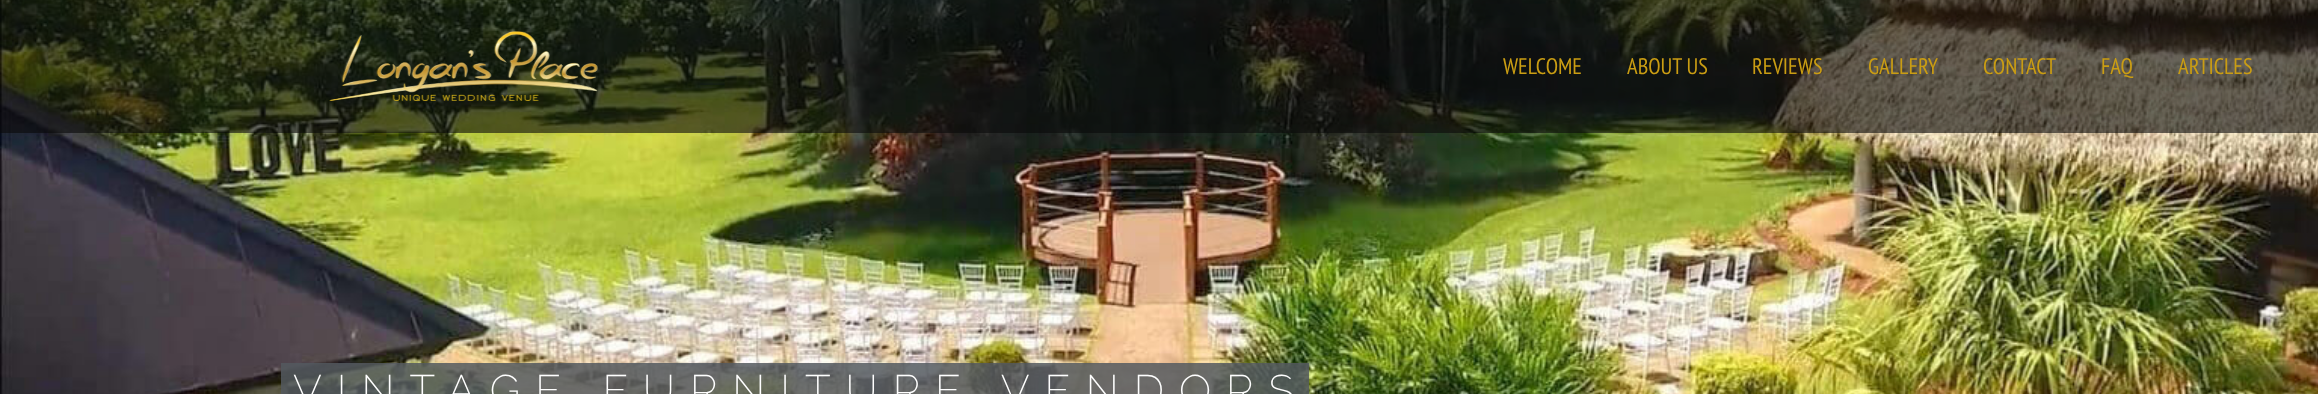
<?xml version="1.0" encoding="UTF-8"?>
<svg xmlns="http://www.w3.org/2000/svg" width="2318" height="394">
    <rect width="100%" height="100%" fill="#FFFFFF"/>
    <image x="0" y="0" width="2318" height="394" href="img_02.png"/>
    <rect x="0" y="0" width="2318" height="133" fill="#0A0A0A" fill-opacity="0.61"/>
    <image x="329" y="31" width="269" height="70" href="img_01.png"/>
    <text x="1503" y="74" font-family="PT Sans Narrow" font-size="22.5" fill="#CA9D13">WELCOME</text>
    <text x="1627" y="74" font-family="PT Sans Narrow" font-size="22.5" fill="#CA9D13">ABOUT US</text>
    <text x="1752" y="74" font-family="PT Sans Narrow" font-size="22.5" fill="#CA9D13">REVIEWS</text>
    <text x="1868" y="74" font-family="PT Sans Narrow" font-size="22.5" fill="#CA9D13">GALLERY</text>
    <text x="1983" y="74" font-family="PT Sans Narrow" font-size="22.5" fill="#CA9D13">CONTACT</text>
    <text x="2101" y="74" font-family="PT Sans Narrow" font-size="22.5" fill="#CA9D13">FAQ</text>
    <text x="2178" y="74" font-family="PT Sans Narrow" font-size="22.5" fill="#CA9D13">ARTICLES</text>
    <rect x="281" y="363" width="1028" height="31" fill="#54595F" fill-opacity="0.85"/>
    <text x="293" y="405" font-family="Raleway" font-size="42.5" font-weight="200" letter-spacing="15" fill="#FFFFFF">VINTAGE FURNITURE VENDORS</text>
</svg>
